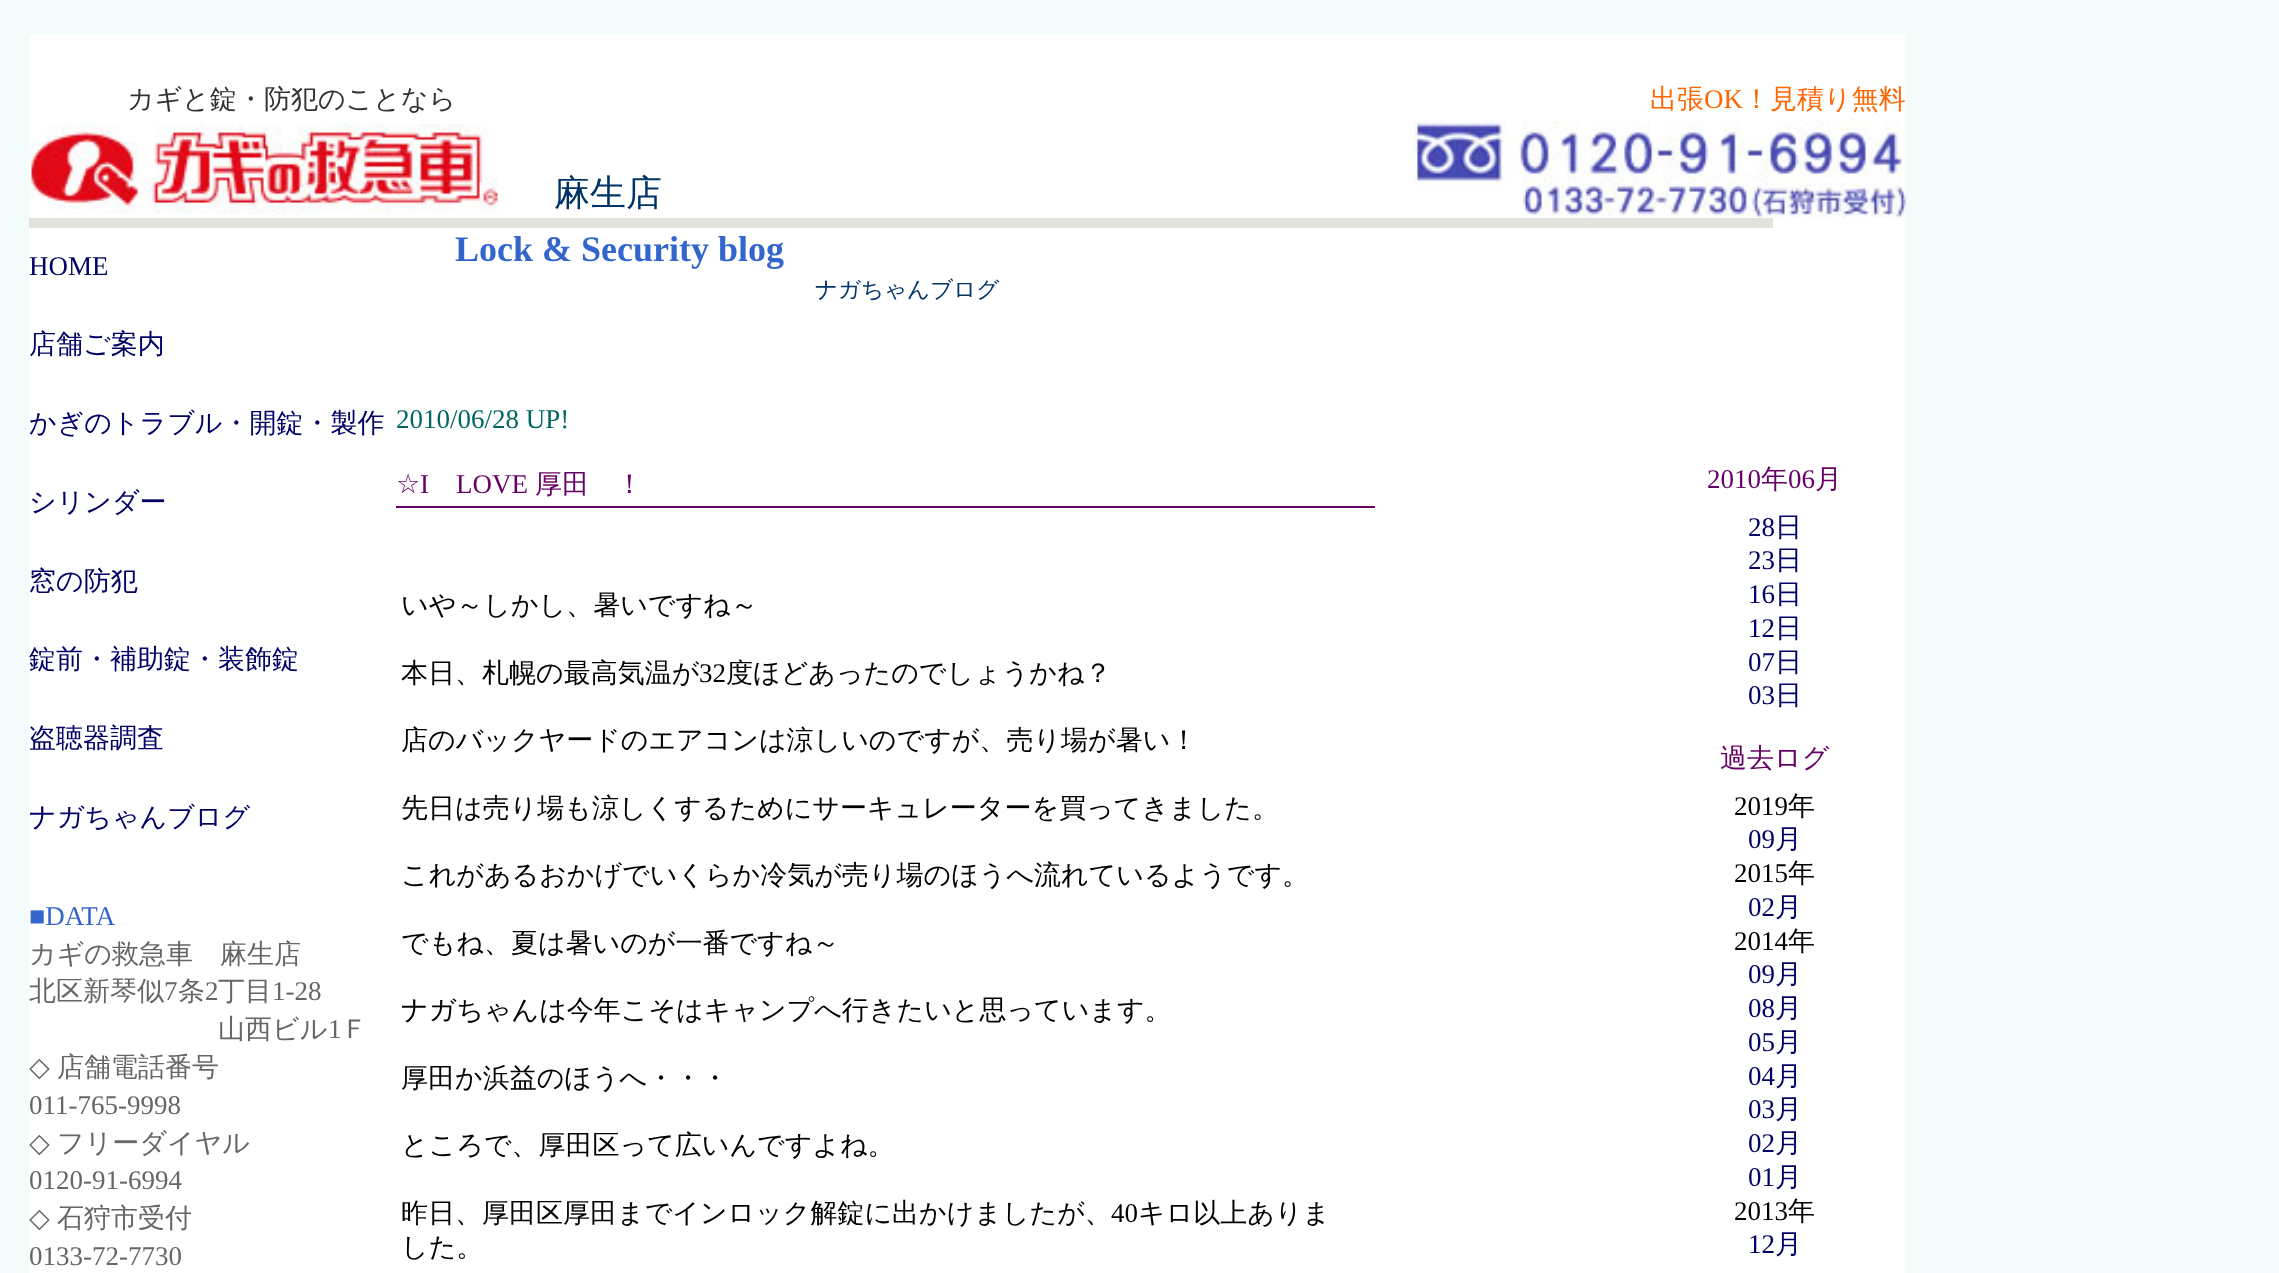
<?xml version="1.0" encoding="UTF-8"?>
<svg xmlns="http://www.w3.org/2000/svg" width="2279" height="1273">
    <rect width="100%" height="100%" fill="#F4FBFB"/>
    <rect x="29" y="34" width="1877" height="1239" fill="#FFFFFF"/>
    <text x="127" y="108" font-family="WenQuanYi Zen Hei" font-size="27" font-weight="500" fill="#333333">カギと錠・防犯のことなら</text>
    <text x="1650" y="108" font-family="WenQuanYi Zen Hei" font-size="27" font-weight="500" fill="#FF6600">出張</text>
    <text x="1704" y="108" font-family="Liberation Serif" font-size="27" fill="#FF6600">OK</text>
    <text x="1743" y="108" font-family="WenQuanYi Zen Hei" font-size="27" font-weight="500" fill="#FF6600">！見積り無料</text>
    <image x="29" y="123" width="469" height="91" href="img_01.png"/>
    <text x="554" y="205" font-family="WenQuanYi Zen Hei" font-size="36" font-weight="500" fill="#003366">麻生店</text>
    <image x="1415" y="119" width="491" height="100" href="img_02.png"/>
    <rect x="29" y="218" width="1744" height="10" fill="#E3E2DD"/>
    <text x="29" y="275" font-family="Liberation Serif" font-size="27" fill="#000066">HOME</text>
    <text x="29" y="353" font-family="WenQuanYi Zen Hei" font-size="27" font-weight="500" fill="#000066">店舗ご案内</text>
    <text x="29" y="432" font-family="WenQuanYi Zen Hei" font-size="27" font-weight="500" fill="#000066">かぎのトラブル・開錠・製作</text>
    <text x="29" y="511" font-family="WenQuanYi Zen Hei" font-size="27" font-weight="500" fill="#000066">シリンダー</text>
    <text x="29" y="590" font-family="WenQuanYi Zen Hei" font-size="27" font-weight="500" fill="#000066">窓の防犯</text>
    <text x="29" y="668" font-family="WenQuanYi Zen Hei" font-size="27" font-weight="500" fill="#000066">錠前・補助錠・装飾錠</text>
    <text x="29" y="747" font-family="WenQuanYi Zen Hei" font-size="27" font-weight="500" fill="#000066">盗聴器調査</text>
    <text x="29" y="826" font-family="WenQuanYi Zen Hei" font-size="27" font-weight="500" fill="#000066">ナガちゃんブログ</text>
    <text x="29" y="925" font-family="Liberation Serif" font-size="27" fill="#3366CC">■DATA</text>
    <text font-family="WenQuanYi Zen Hei" font-size="27" font-weight="500" fill="#666666">
        <tspan x="29" y="963">カギの救急車　麻生店</tspan>
        <tspan x="29" y="1000">北区新琴似</tspan>
    </text>
    <text x="164" y="1000" font-family="Liberation Serif" font-size="27" fill="#666666">7</text>
    <text x="178" y="1000" font-family="WenQuanYi Zen Hei" font-size="27" font-weight="500" fill="#666666">条</text>
    <text x="205" y="1000" font-family="Liberation Serif" font-size="27" fill="#666666">2</text>
    <text x="218" y="1000" font-family="WenQuanYi Zen Hei" font-size="27" font-weight="500" fill="#666666">丁目</text>
    <text x="272" y="1000" font-family="Liberation Serif" font-size="27" fill="#666666">1-28</text>
    <text x="218" y="1038" font-family="WenQuanYi Zen Hei" font-size="27" font-weight="500" fill="#666666">山西ビル</text>
    <text x="328" y="1038" font-family="Liberation Serif" font-size="27" fill="#666666">1</text>
    <text x="341" y="1038" font-family="WenQuanYi Zen Hei" font-size="27" font-weight="500" fill="#666666">Ｆ</text>
    <text x="29" y="1076" font-family="DejaVu Sans" font-size="27" fill="#666666">◇</text>
    <text x="57" y="1076" font-family="WenQuanYi Zen Hei" font-size="27" font-weight="500" fill="#666666">店舗電話番号</text>
    <text x="29" y="1114" font-family="Liberation Serif" font-size="27" fill="#666666">011-765-9998</text>
    <text x="29" y="1152" font-family="DejaVu Sans" font-size="27" fill="#666666">◇</text>
    <text x="57" y="1152" font-family="WenQuanYi Zen Hei" font-size="27" font-weight="500" fill="#666666">フリーダイヤル</text>
    <text x="29" y="1189" font-family="Liberation Serif" font-size="27" fill="#666666">0120-91-6994</text>
    <text x="29" y="1227" font-family="DejaVu Sans" font-size="27" fill="#666666">◇</text>
    <text x="57" y="1227" font-family="WenQuanYi Zen Hei" font-size="27" font-weight="500" fill="#666666">石狩市受付</text>
    <text x="29" y="1265" font-family="Liberation Serif" font-size="27" fill="#666666">0133-72-7730</text>
    <text x="455" y="261" font-family="Liberation Serif" font-size="36" font-weight="700" fill="#3366CC">Lock &amp; Security blog</text>
    <text x="815" y="297" font-family="WenQuanYi Zen Hei" font-size="22.5" font-weight="500" fill="#003366">ナガちゃんブログ</text>
    <text x="396" y="428" font-family="Liberation Serif" font-size="27" fill="#006666">2010/06/28 UP!</text>
    <rect x="396" y="506" width="979" height="2" fill="#660066"/>
    <text x="396" y="493" font-family="DejaVu Sans" font-size="27" fill="#660066">☆</text>
    <text x="420" y="493" font-family="Liberation Serif" font-size="27" fill="#660066">I</text>
    <text x="456" y="493" font-family="Liberation Serif" font-size="27" fill="#660066">LOVE</text>
    <text x="535" y="493" font-family="WenQuanYi Zen Hei" font-size="27" font-weight="500" fill="#660066">厚田　！</text>
    <text x="401" y="614" font-family="WenQuanYi Zen Hei" font-size="27" font-weight="500" fill="#000000">いや～しかし、暑いですね～</text>
    <text x="401" y="682" font-family="WenQuanYi Zen Hei" font-size="27" font-weight="500" fill="#000000">本日、札幌の最高気温が</text>
    <text x="699" y="682" font-family="Liberation Serif" font-size="27" fill="#000000">32</text>
    <text x="726" y="682" font-family="WenQuanYi Zen Hei" font-size="27" font-weight="500" fill="#000000">度ほどあったのでしょうかね？</text>
    <text x="401" y="749" font-family="WenQuanYi Zen Hei" font-size="27" font-weight="500" fill="#000000">店のバックヤードのエアコンは涼しいのですが、売り場が暑い！</text>
    <text x="401" y="817" font-family="WenQuanYi Zen Hei" font-size="27" font-weight="500" fill="#000000">先日は売り場も涼しくするためにサーキュレーターを買ってきました。</text>
    <text x="401" y="884" font-family="WenQuanYi Zen Hei" font-size="27" font-weight="500" fill="#000000">これがあるおかげでいくらか冷気が売り場のほうへ流れているようです。</text>
    <text x="401" y="952" font-family="WenQuanYi Zen Hei" font-size="27" font-weight="500" fill="#000000">でもね、夏は暑いのが一番ですね～</text>
    <text x="401" y="1019" font-family="WenQuanYi Zen Hei" font-size="27" font-weight="500" fill="#000000">ナガちゃんは今年こそはキャンプへ行きたいと思っています。</text>
    <text x="401" y="1087" font-family="WenQuanYi Zen Hei" font-size="27" font-weight="500" fill="#000000">厚田か浜益のほうへ・・・</text>
    <text x="401" y="1154" font-family="WenQuanYi Zen Hei" font-size="27" font-weight="500" fill="#000000">ところで、厚田区って広いんですよね。</text>
    <text x="401" y="1222" font-family="WenQuanYi Zen Hei" font-size="27" font-weight="500" fill="#000000">昨日、厚田区厚田までインロック解錠に出かけましたが、</text>
    <text x="1111" y="1222" font-family="Liberation Serif" font-size="27" fill="#000000">40</text>
    <text x="1138" y="1222" font-family="WenQuanYi Zen Hei" font-size="27" font-weight="500" fill="#000000">キロ以上ありま</text>
    <text x="401" y="1256" font-family="WenQuanYi Zen Hei" font-size="27" font-weight="500" fill="#000000">した。</text>
    <text x="1707" y="488" font-family="Liberation Serif" font-size="27" fill="#660066">2010</text>
    <text x="1761" y="488" font-family="WenQuanYi Zen Hei" font-size="27" font-weight="500" fill="#660066">年</text>
    <text x="1788" y="488" font-family="Liberation Serif" font-size="27" fill="#660066">06</text>
    <text x="1815" y="488" font-family="WenQuanYi Zen Hei" font-size="27" font-weight="500" fill="#660066">月</text>
    <text x="1748" y="536" font-family="Liberation Serif" font-size="27" fill="#000066">28</text>
    <text x="1775" y="536" font-family="WenQuanYi Zen Hei" font-size="27" font-weight="500" fill="#000066">日</text>
    <text x="1748" y="569" font-family="Liberation Serif" font-size="27" fill="#000066">23</text>
    <text x="1775" y="569" font-family="WenQuanYi Zen Hei" font-size="27" font-weight="500" fill="#000066">日</text>
    <text x="1748" y="603" font-family="Liberation Serif" font-size="27" fill="#000066">16</text>
    <text x="1775" y="603" font-family="WenQuanYi Zen Hei" font-size="27" font-weight="500" fill="#000066">日</text>
    <text x="1748" y="637" font-family="Liberation Serif" font-size="27" fill="#000066">12</text>
    <text x="1775" y="637" font-family="WenQuanYi Zen Hei" font-size="27" font-weight="500" fill="#000066">日</text>
    <text x="1748" y="671" font-family="Liberation Serif" font-size="27" fill="#000066">07</text>
    <text x="1775" y="671" font-family="WenQuanYi Zen Hei" font-size="27" font-weight="500" fill="#000066">日</text>
    <text x="1748" y="704" font-family="Liberation Serif" font-size="27" fill="#000066">03</text>
    <text x="1775" y="704" font-family="WenQuanYi Zen Hei" font-size="27" font-weight="500" fill="#000066">日</text>
    <text x="1720" y="767" font-family="WenQuanYi Zen Hei" font-size="27" font-weight="500" fill="#660066">過去ログ</text>
    <text x="1734" y="815" font-family="Liberation Serif" font-size="27" fill="#000000">2019</text>
    <text x="1788" y="815" font-family="WenQuanYi Zen Hei" font-size="27" font-weight="500" fill="#000000">年</text>
    <text x="1748" y="848" font-family="Liberation Serif" font-size="27" fill="#000066">09</text>
    <text x="1775" y="848" font-family="WenQuanYi Zen Hei" font-size="27" font-weight="500" fill="#000066">月</text>
    <text x="1734" y="882" font-family="Liberation Serif" font-size="27" fill="#000000">2015</text>
    <text x="1788" y="882" font-family="WenQuanYi Zen Hei" font-size="27" font-weight="500" fill="#000000">年</text>
    <text x="1748" y="916" font-family="Liberation Serif" font-size="27" fill="#000066">02</text>
    <text x="1775" y="916" font-family="WenQuanYi Zen Hei" font-size="27" font-weight="500" fill="#000066">月</text>
    <text x="1734" y="950" font-family="Liberation Serif" font-size="27" fill="#000000">2014</text>
    <text x="1788" y="950" font-family="WenQuanYi Zen Hei" font-size="27" font-weight="500" fill="#000000">年</text>
    <text x="1748" y="983" font-family="Liberation Serif" font-size="27" fill="#000066">09</text>
    <text x="1775" y="983" font-family="WenQuanYi Zen Hei" font-size="27" font-weight="500" fill="#000066">月</text>
    <text x="1748" y="1017" font-family="Liberation Serif" font-size="27" fill="#000066">08</text>
    <text x="1775" y="1017" font-family="WenQuanYi Zen Hei" font-size="27" font-weight="500" fill="#000066">月</text>
    <text x="1748" y="1051" font-family="Liberation Serif" font-size="27" fill="#000066">05</text>
    <text x="1775" y="1051" font-family="WenQuanYi Zen Hei" font-size="27" font-weight="500" fill="#000066">月</text>
    <text x="1748" y="1085" font-family="Liberation Serif" font-size="27" fill="#000066">04</text>
    <text x="1775" y="1085" font-family="WenQuanYi Zen Hei" font-size="27" font-weight="500" fill="#000066">月</text>
    <text x="1748" y="1118" font-family="Liberation Serif" font-size="27" fill="#000066">03</text>
    <text x="1775" y="1118" font-family="WenQuanYi Zen Hei" font-size="27" font-weight="500" fill="#000066">月</text>
    <text x="1748" y="1152" font-family="Liberation Serif" font-size="27" fill="#000066">02</text>
    <text x="1775" y="1152" font-family="WenQuanYi Zen Hei" font-size="27" font-weight="500" fill="#000066">月</text>
    <text x="1748" y="1186" font-family="Liberation Serif" font-size="27" fill="#000066">01</text>
    <text x="1775" y="1186" font-family="WenQuanYi Zen Hei" font-size="27" font-weight="500" fill="#000066">月</text>
    <text x="1734" y="1220" font-family="Liberation Serif" font-size="27" fill="#000000">2013</text>
    <text x="1788" y="1220" font-family="WenQuanYi Zen Hei" font-size="27" font-weight="500" fill="#000000">年</text>
    <text x="1748" y="1253" font-family="Liberation Serif" font-size="27" fill="#000066">12</text>
    <text x="1775" y="1253" font-family="WenQuanYi Zen Hei" font-size="27" font-weight="500" fill="#000066">月</text>
</svg>
